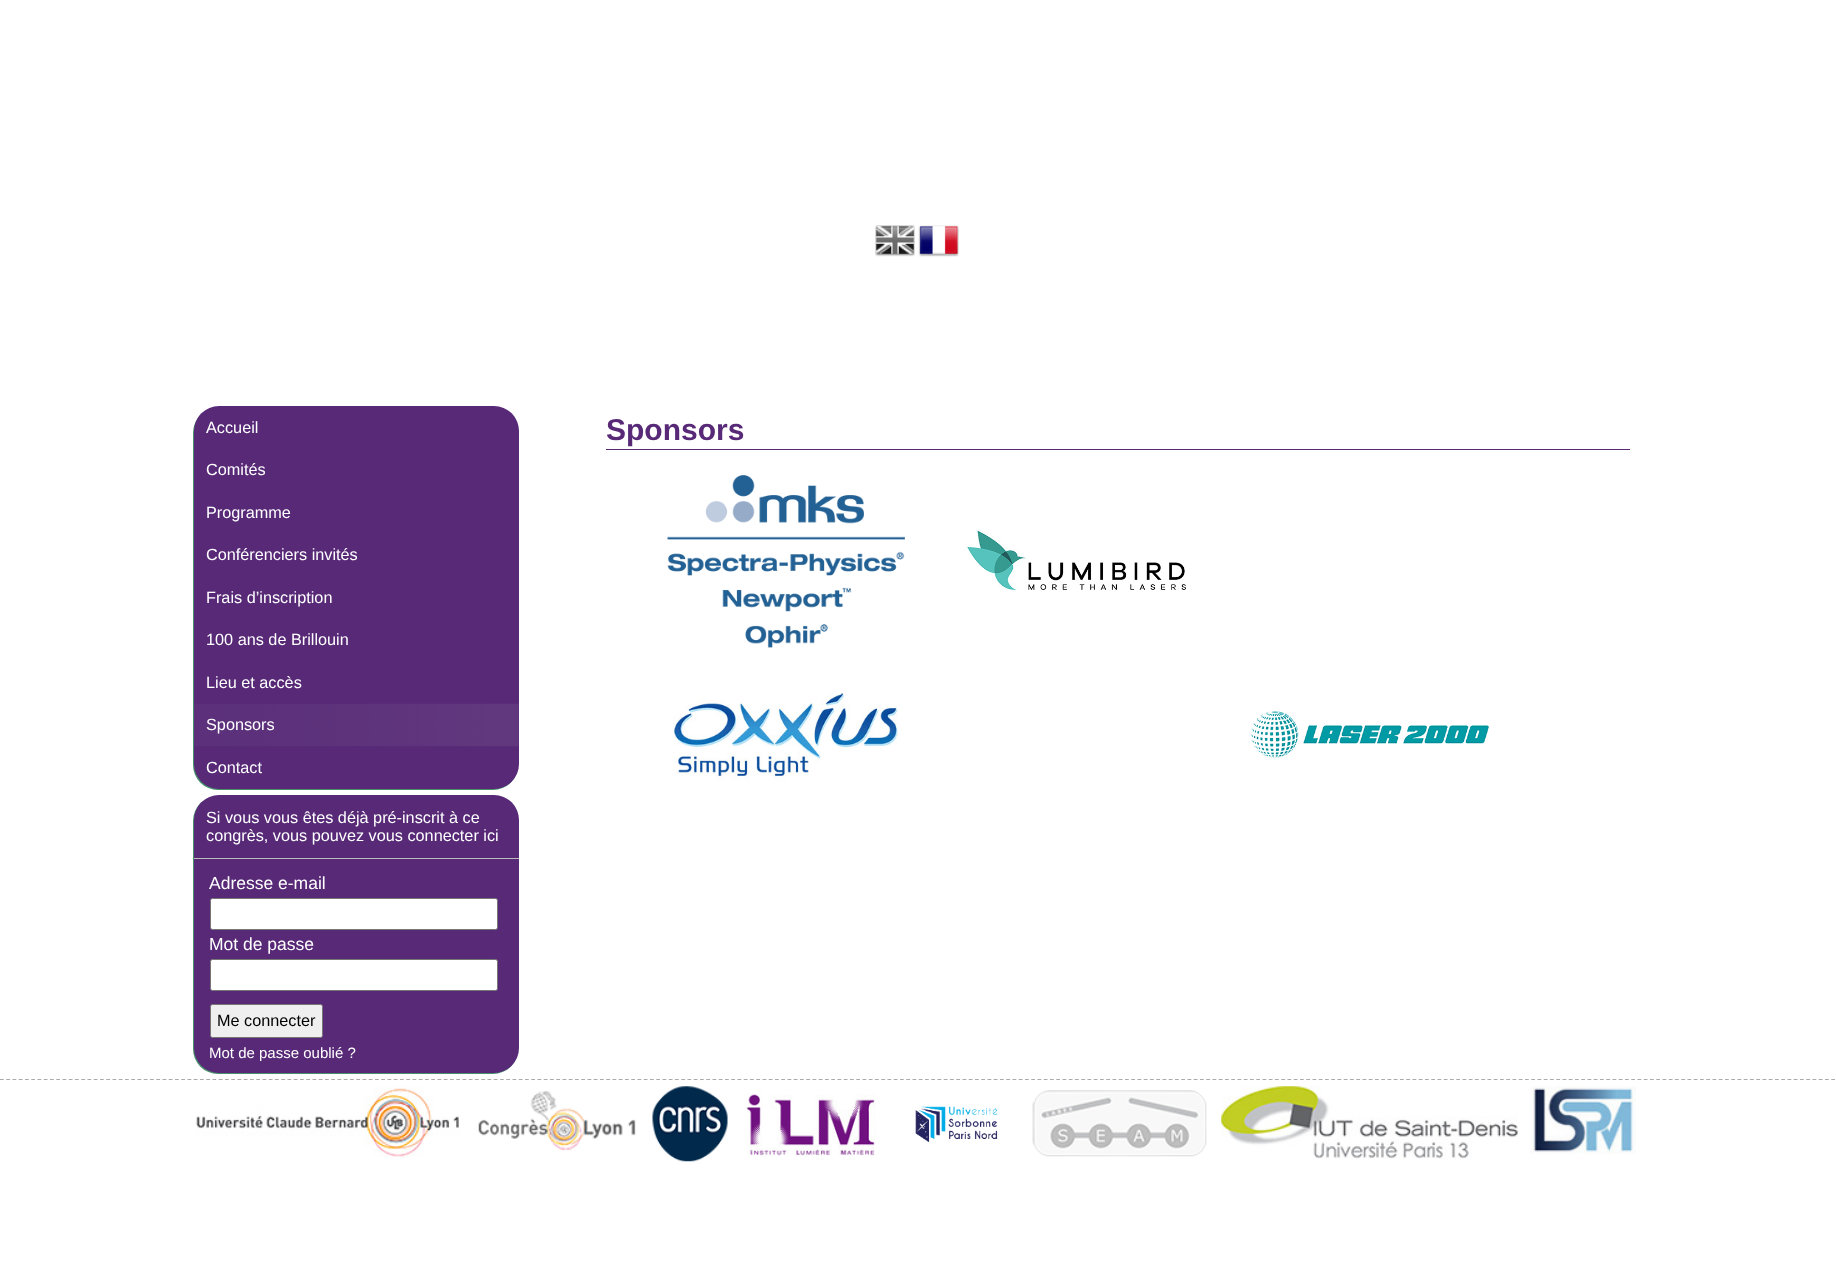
<?xml version="1.0" encoding="UTF-8"?>
<svg xmlns="http://www.w3.org/2000/svg" width="1836" height="1281">
    <defs>
        <filter id="blur1" x="-50%" y="-200%" width="200%" height="500%"><feGaussianBlur stdDeviation="0.5"/></filter>
    </defs>
    <rect width="100%" height="100%" fill="#FFFFFF"/>
    <image x="875" y="225" width="40" height="32" href="img_01.png"/>
    <image x="918" y="225" width="41" height="32" href="img_02.png"/>
    <rect x="193" y="408" width="325" height="382" rx="25" fill="#498F6C" filter="url(#blur1)"/>
    <rect x="194" y="406" width="325" height="383" rx="25" fill="#572977"/>
    <text x="206" y="433" font-family="Liberation Sans" font-size="16.25" fill="#FFFFFF">Accueil</text>
    <text x="206" y="475" font-family="Liberation Sans" font-size="16.25" fill="#FFFFFF">Comités</text>
    <text x="206" y="518" font-family="Liberation Sans" font-size="16.25" fill="#FFFFFF">Programme</text>
    <text x="206" y="560" font-family="Liberation Sans" font-size="16.25" fill="#FFFFFF">Conférenciers invités</text>
    <text x="206" y="603" font-family="Liberation Sans" font-size="16.25" fill="#FFFFFF">Frais d’inscription</text>
    <text x="206" y="645" font-family="Liberation Sans" font-size="16.25" fill="#FFFFFF">100 ans de Brillouin</text>
    <text x="206" y="688" font-family="Liberation Sans" font-size="16.25" fill="#FFFFFF">Lieu et accès</text>
    <image x="194" y="703" width="325" height="44" href="img_03.png"/>
    <text x="206" y="730" font-family="Liberation Sans" font-size="16.25" fill="#FFFFFF">Sponsors</text>
    <text x="206" y="773" font-family="Liberation Sans" font-size="16.25" fill="#FFFFFF">Contact</text>
    <rect x="193" y="796" width="325" height="278" rx="25" fill="#498F6C" filter="url(#blur1)"/>
    <rect x="194" y="795" width="325" height="278" rx="25" fill="#572977"/>
    <rect x="194" y="858" width="325" height="1" fill="#BBBBBB"/>
    <text font-family="Liberation Sans" font-size="16.25" fill="#FFFFFF">
        <tspan x="206" y="823">Si vous vous êtes déjà pré-inscrit à ce</tspan>
        <tspan x="206" y="841">congrès, vous pouvez vous connecter ici</tspan>
    </text>
    <text x="209" y="889" font-family="Liberation Sans" font-size="17.5" fill="#FFFFFF">Adresse e-mail</text>
    <rect x="210.5" y="898.5" width="287" height="31" rx="2" fill="#FFFFFF" stroke="#767676"/>
    <text x="209" y="950" font-family="Liberation Sans" font-size="17.5" fill="#FFFFFF">Mot de passe</text>
    <rect x="210.5" y="959.5" width="287" height="31" rx="2" fill="#FFFFFF" stroke="#767676"/>
    <rect x="210.5" y="1004.5" width="112" height="33" rx="2" fill="#EFEFEF" stroke="#767676"/>
    <text x="217" y="1026" font-family="Liberation Sans" font-size="16.25" fill="#000000">Me connecter</text>
    <text x="209" y="1058" font-family="Liberation Sans" font-size="15" fill="#FFFFFF">Mot de passe oublié ?</text>
    <rect x="606" y="449" width="1024" height="1" fill="#572977"/>
    <text x="606" y="440" font-family="Liberation Sans" font-size="30" font-weight="700" fill="#572977">Sponsors</text>
    <image x="667" y="475" width="238" height="173" href="img_04.png"/>
    <image x="964" y="529" width="222" height="61" href="img_05.png"/>
    <image x="673" y="693" width="225" height="88" href="img_06.png"/>
    <image x="1251" y="711" width="238" height="47" href="img_07.png"/>
    <path d="M 0 1079.5 H 1836" fill="none" stroke="#AAAAAA" stroke-width="1.2" stroke-dasharray="3.75 2.5"/>
    <image x="196" y="1086" width="263" height="71" href="img_08.png"/>
    <image x="478" y="1091" width="158" height="60" href="img_09.png"/>
    <image x="652" y="1086" width="76" height="76" href="img_10.png"/>
    <image x="746" y="1094" width="130" height="62" href="img_11.png"/>
    <image x="915" y="1106" width="83" height="37" href="img_12.png"/>
    <image x="1032" y="1090" width="175" height="67" href="img_13.png"/>
    <image x="1221" y="1086" width="297" height="73" href="img_14.png"/>
    <image x="1530" y="1086" width="106" height="68" href="img_15.png"/>
</svg>
